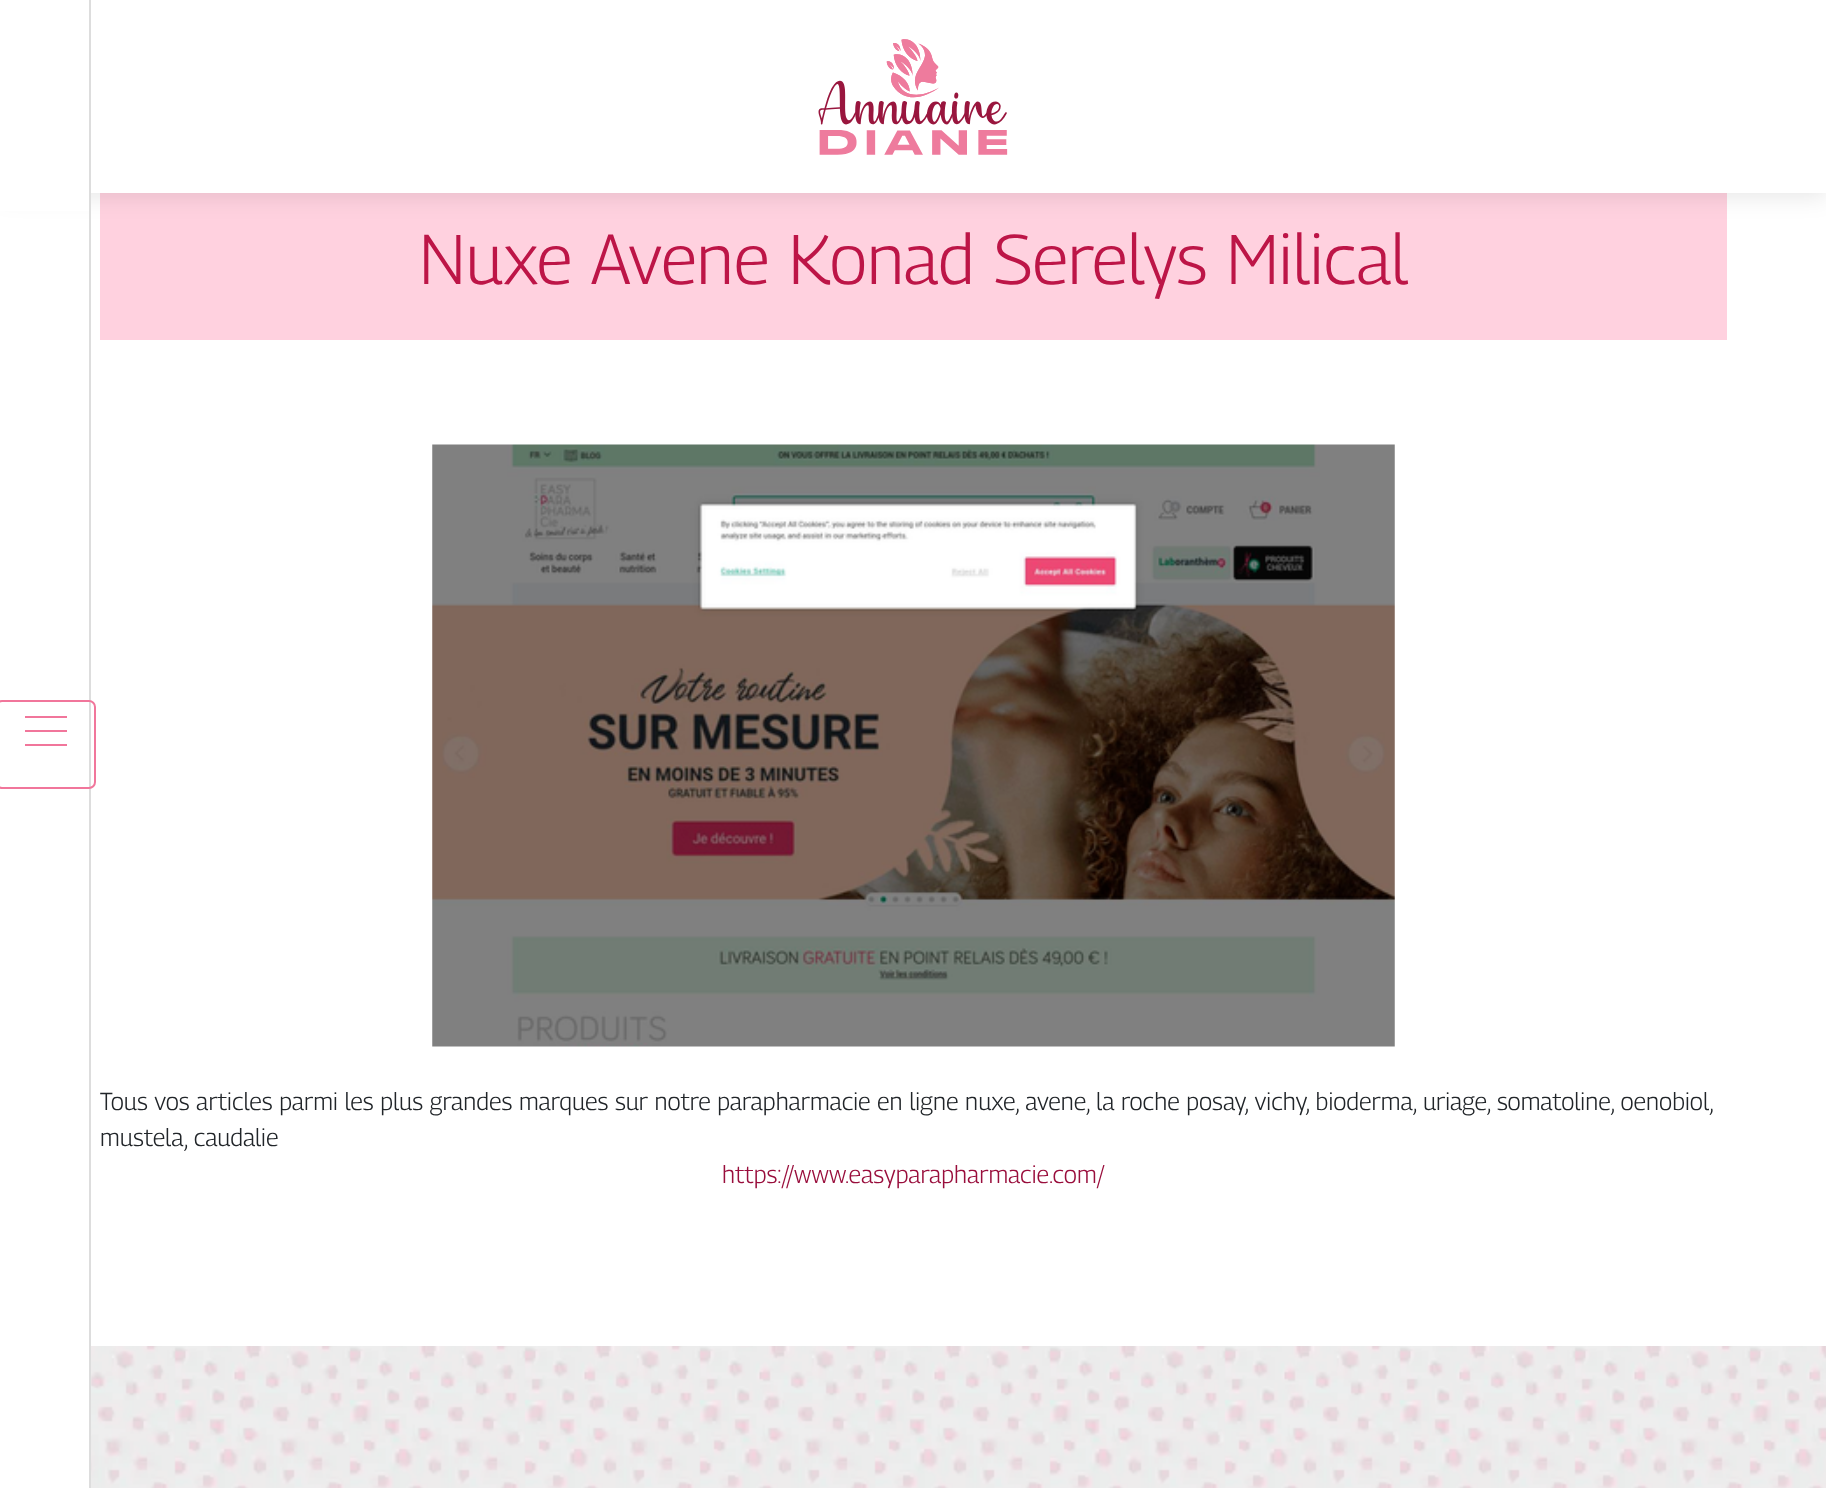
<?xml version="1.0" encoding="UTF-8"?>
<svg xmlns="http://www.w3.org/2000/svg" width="1826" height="1488">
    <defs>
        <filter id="blur1" x="-50%" y="-200%" width="200%" height="500%"><feGaussianBlur stdDeviation="11.5"/></filter>
    </defs>
    <rect width="100%" height="100%" fill="#FFFFFF"/>
    <image x="91" y="1346" width="1735" height="142" href="img_01.png"/>
    <rect x="100" y="193" width="1627" height="147" fill="#FFD1DF"/>
    <rect x="0" y="4" width="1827" height="192" fill="#000000" fill-opacity="0.1" filter="url(#blur1)"/>
    <rect x="91" y="0" width="1735" height="193" fill="#FFFFFF"/>
    <rect x="0" y="0" width="89" height="211" fill="#FFFFFF"/>
    <rect x="89" y="0" width="2" height="1488" fill="#DDDDDD"/>
    <rect x="-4" y="701" width="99" height="87" rx="6" fill="none" stroke="#F1769B" stroke-width="2"/>
    <rect x="25" y="716" width="42" height="2" fill="#F1769B"/>
    <rect x="25" y="730" width="42" height="2" fill="#F1769B"/>
    <rect x="25" y="744" width="42" height="2" fill="#F1769B"/>
    <image x="818" y="39" width="190" height="116" href="img_02.png"/>
    <text x="419" y="284" font-family="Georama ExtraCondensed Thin" font-size="70" font-weight="100" fill="#BD1547">Nuxe Avene Konad Serelys Milical</text>
    <image x="432" y="444" width="963" height="603" href="img_03.png"/>
    <text font-family="Georama ExtraCondensed Thin" font-size="24.5" font-weight="100" fill="#212529">
        <tspan x="100" y="1110">Tous vos articles parmi les plus grandes marques sur notre parapharmacie en ligne nuxe, avene, la roche posay, vichy, bioderma, uriage, somatoline, oenobiol,</tspan>
        <tspan x="100" y="1146">mustela, caudalie</tspan>
    </text>
    <text x="722" y="1183" font-family="Georama ExtraCondensed Thin" font-size="24.5" font-weight="100" fill="#990E3C">https://www.easyparapharmacie.com/</text>
</svg>
